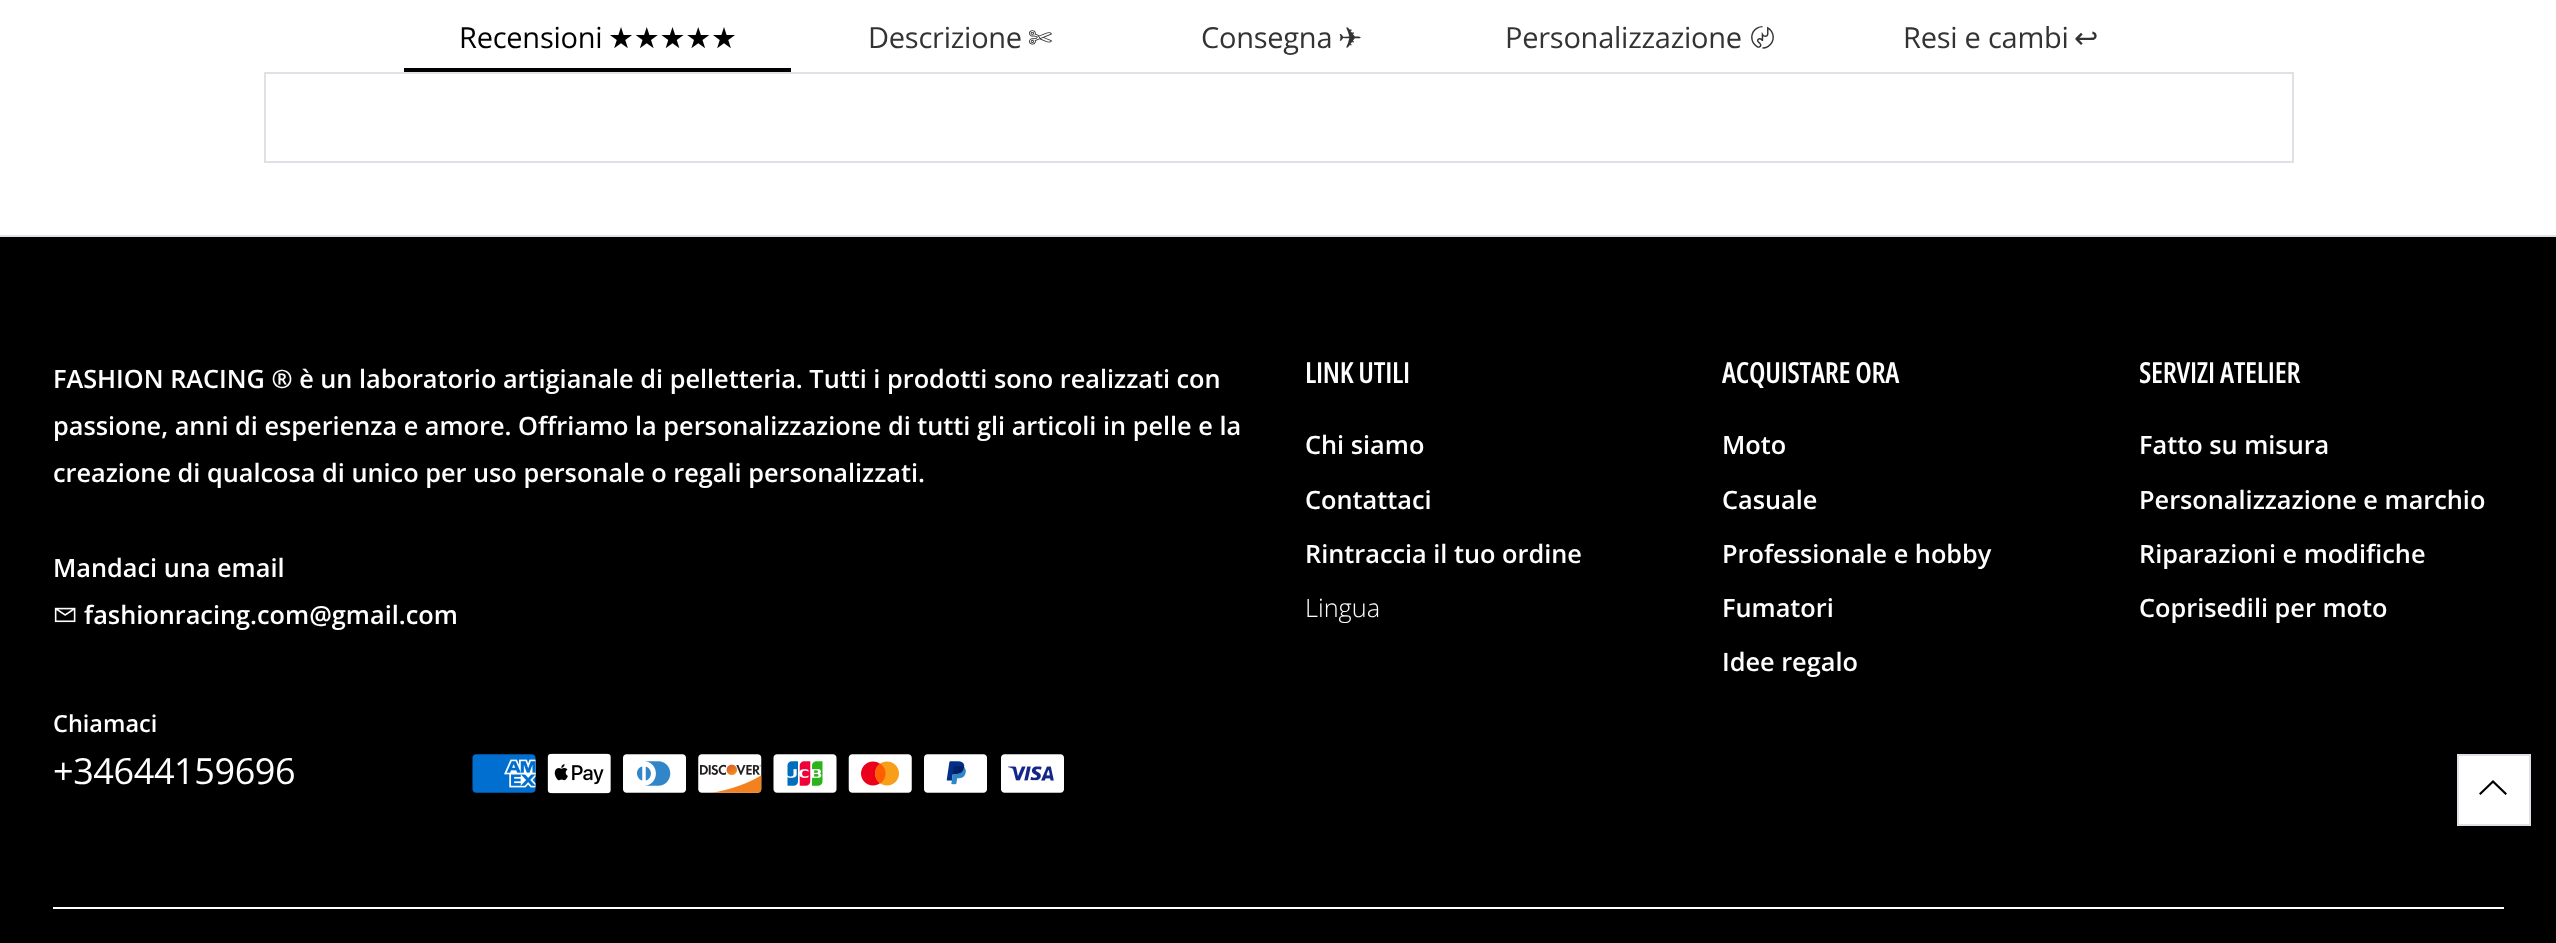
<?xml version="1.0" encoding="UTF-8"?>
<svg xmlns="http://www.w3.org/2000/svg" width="2556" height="943">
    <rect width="100%" height="100%" fill="#FFFFFF"/>
    <rect x="404" y="68" width="387" height="4" fill="#000000"/>
    <text x="459" y="48" font-family="Open Sans" font-size="29" letter-spacing="-0.25" fill="#000000">Recensioni</text>
    <text x="608" y="48" font-family="DejaVu Sans" font-size="29" letter-spacing="-0.25" fill="#000000">★★★★★</text>
    <text x="868" y="48" font-family="Open Sans" font-size="29" letter-spacing="-0.25" fill="#333333">Descrizione</text>
    <text x="1028" y="48" font-family="DejaVu Sans" font-size="29" letter-spacing="-0.25" fill="#333333">✄</text>
    <text x="1201" y="48" font-family="Open Sans" font-size="29" letter-spacing="-0.25" fill="#333333">Consegna</text>
    <text x="1338" y="48" font-family="DejaVu Sans" font-size="29" letter-spacing="-0.25" fill="#333333">✈︎</text>
    <text x="1505" y="48" font-family="Open Sans" font-size="29" letter-spacing="-0.25" fill="#333333">Personalizzazione</text>
    <text x="1748" y="48" font-family="Sawarabi Gothic" font-size="29" letter-spacing="-0.25" fill="#333333">〄</text>
    <text x="1903" y="48" font-family="Open Sans" font-size="29" letter-spacing="-0.25" fill="#333333">Resi e cambi</text>
    <text x="2074" y="48" font-family="DejaVu Sans" font-size="29" letter-spacing="-0.25" fill="#333333">↩︎</text>
    <rect x="265" y="73" width="2028" height="89" fill="none" stroke="#DEE2E6" stroke-width="2"/>
    <rect x="0" y="237" width="2556" height="706" fill="#000000"/>
    <rect x="0" y="235" width="2556" height="2" fill="#DEE2E6"/>
    <text font-family="Open Sans" font-size="25.3" font-weight="600" fill="#FFFFFF">
        <tspan x="53" y="388">FASHION RACING ® è un laboratorio artigianale di pelletteria. Tutti i prodotti sono realizzati con</tspan>
        <tspan x="53" y="435">passione, anni di esperienza e amore. Offriamo la personalizzazione di tutti gli articoli in pelle e la</tspan>
        <tspan x="53" y="482">creazione di qualcosa di unico per uso personale o regali personalizzati.</tspan>
    </text>
    <text x="53" y="577" font-family="Open Sans" font-size="25.3" font-weight="600" fill="#FFFFFF">Mandaci una email</text>
    <image x="54" y="607" width="22" height="16" href="img_01.png"/>
    <text x="84" y="624" font-family="Open Sans" font-size="25.3" font-weight="600" fill="#FFFFFF">fashionracing.com@gmail.com</text>
    <text x="53" y="732" font-family="Open Sans" font-size="23.5" font-weight="600" fill="#FFFFFF">Chiamaci</text>
    <text x="53" y="784" font-family="Open Sans" font-size="36" letter-spacing="-0.4" fill="#FFFFFF">+34644159696</text>
    <image x="472" y="754" width="64" height="39" href="img_02.png"/>
    <image x="547" y="753" width="64" height="41" href="img_03.png"/>
    <image x="623" y="754" width="63" height="39" href="img_04.png"/>
    <image x="698" y="754" width="64" height="39" href="img_05.png"/>
    <image x="773" y="754" width="64" height="39" href="img_06.png"/>
    <image x="848" y="754" width="64" height="39" href="img_07.png"/>
    <image x="924" y="754" width="63" height="39" href="img_08.png"/>
    <image x="1001" y="754" width="63" height="39" href="img_09.png"/>
    <text x="1305" y="383" font-family="Open Sans Condensed" font-size="29" font-weight="600" letter-spacing="-0.25" fill="#FFFFFF">LINK UTILI</text>
    <text x="1305" y="454" font-family="Open Sans" font-size="25.3" font-weight="600" fill="#FFFFFF">Chi siamo</text>
    <text x="1305" y="509" font-family="Open Sans" font-size="25.3" font-weight="600" fill="#FFFFFF">Contattaci</text>
    <text x="1305" y="563" font-family="Open Sans" font-size="25.3" font-weight="600" fill="#FFFFFF">Rintraccia il tuo ordine</text>
    <text x="1305" y="617" font-family="Open Sans" font-size="25.3" font-weight="300" fill="#FFFFFF">Lingua</text>
    <text x="1722" y="383" font-family="Open Sans Condensed" font-size="29" font-weight="600" letter-spacing="-0.25" fill="#FFFFFF">ACQUISTARE ORA</text>
    <text x="1722" y="454" font-family="Open Sans" font-size="25.3" font-weight="600" fill="#FFFFFF">Moto</text>
    <text x="1722" y="509" font-family="Open Sans" font-size="25.3" font-weight="600" fill="#FFFFFF">Casuale</text>
    <text x="1722" y="563" font-family="Open Sans" font-size="25.3" font-weight="600" fill="#FFFFFF">Professionale e hobby</text>
    <text x="1722" y="617" font-family="Open Sans" font-size="25.3" font-weight="600" fill="#FFFFFF">Fumatori</text>
    <text x="1722" y="671" font-family="Open Sans" font-size="25.3" font-weight="600" fill="#FFFFFF">Idee regalo</text>
    <text x="2139" y="383" font-family="Open Sans Condensed" font-size="29" font-weight="600" letter-spacing="-0.25" fill="#FFFFFF">SERVIZI ATELIER</text>
    <text x="2139" y="454" font-family="Open Sans" font-size="25.3" font-weight="600" fill="#FFFFFF">Fatto su misura</text>
    <text x="2139" y="509" font-family="Open Sans" font-size="25.3" font-weight="600" fill="#FFFFFF">Personalizzazione e marchio</text>
    <text x="2139" y="563" font-family="Open Sans" font-size="25.3" font-weight="600" fill="#FFFFFF">Riparazioni e modifiche</text>
    <text x="2139" y="617" font-family="Open Sans" font-size="25.3" font-weight="600" fill="#FFFFFF">Coprisedili per moto</text>
    <rect x="53" y="907" width="2451" height="2" fill="#FFFFFF"/>
    <rect x="2458" y="755" width="72" height="70" fill="#FFFFFF" stroke="#DEE2E6" stroke-width="2"/>
    <path d="M 2493 780 L 2507 793.5 L 2505.5 795 L 2493 783 L 2480.5 795 L 2479 793.5 Z" fill="#000000"/>
</svg>
